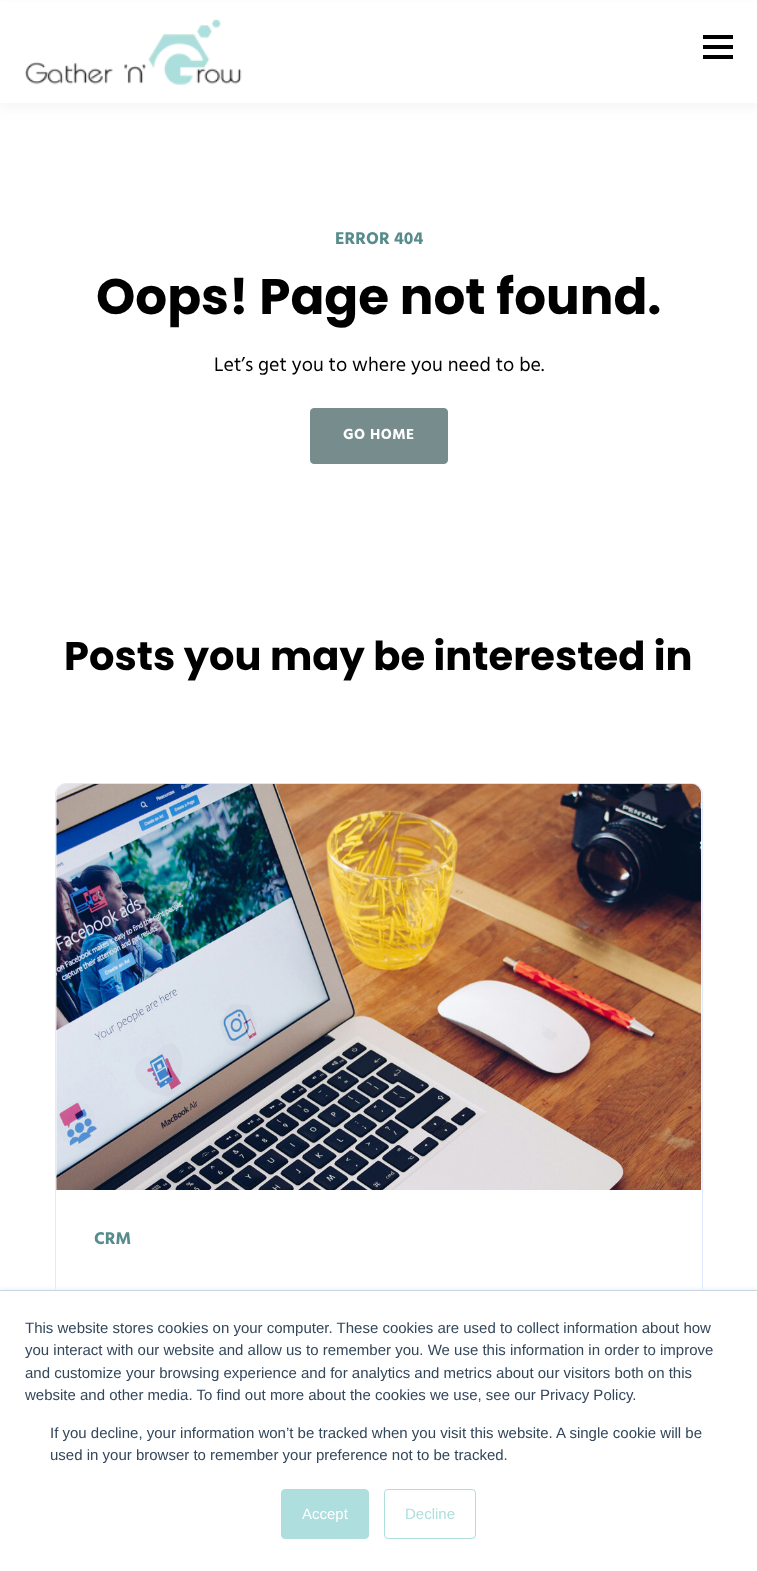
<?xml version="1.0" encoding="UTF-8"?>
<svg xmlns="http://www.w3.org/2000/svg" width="757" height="1571">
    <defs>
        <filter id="blur1" x="-50%" y="-200%" width="200%" height="500%"><feGaussianBlur stdDeviation="6"/></filter>
        <filter id="blur2" x="-50%" y="-200%" width="200%" height="500%"><feGaussianBlur stdDeviation="2"/></filter>
    </defs>
    <rect width="100%" height="100%" fill="#FFFFFF"/>
    <rect x="0" y="6" width="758" height="103" fill="#9AA1B1" fill-opacity="0.1" filter="url(#blur1)"/>
    <rect x="0" y="2" width="757" height="101" fill="#FFFFFF"/>
    <image x="25" y="19" width="217" height="66" href="img_01.png"/>
    <rect x="703" y="45" width="30" height="4" fill="#000000"/>
    <rect x="703" y="35" width="30" height="4" fill="#000000"/>
    <rect x="703" y="55" width="30" height="4" fill="#000000"/>
    <text x="335" y="244" font-family="Hind" font-size="17.5" font-weight="700" fill="#578C8C">ERROR 404</text>
    <text x="96" y="314" font-family="Poppins" font-size="50" font-weight="700" fill="#000000">Oops! Page not found.</text>
    <text x="214" y="371" font-family="Hind" font-size="20" fill="#000000">Let’s get you to where you need to be.</text>
    <rect x="310.5" y="408.5" width="137" height="55" rx="3.5" fill="#778C8C" stroke="#778C8C"/>
    <text x="343" y="439" font-family="Hind" font-size="15" font-weight="700" letter-spacing="0.5" fill="#FFFFFF">GO HOME</text>
    <text x="64" y="670" font-family="Poppins" font-size="40" font-weight="700" fill="#000000">Posts you may be interested in</text>
    <rect x="55.5" y="783.5" width="647" height="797" rx="10.5" fill="none" stroke="#6492FD" stroke-opacity="0.2"/>
    <image x="56" y="783" width="646" height="407" href="img_02.png"/>
    <text x="94" y="1244" font-family="Hind" font-size="17.5" font-weight="700" fill="#578C8C">CRM</text>
    <rect x="0" y="1289" width="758" height="281" fill="#EAF0F6" filter="url(#blur2)"/>
    <rect x="0" y="1291" width="757" height="280" fill="#FFFFFF"/>
    <rect x="0" y="1290" width="757" height="1" fill="#CBD6E2"/>
    <text font-family="Liberation Sans" font-size="15" fill="#33475B">
        <tspan x="25" y="1333">This website stores cookies on your computer. These cookies are used to collect information about how</tspan>
        <tspan x="25" y="1355">you interact with our website and allow us to remember you. We use this information in order to improve</tspan>
        <tspan x="25" y="1378">and customize your browsing experience and for analytics and metrics about our visitors both on this</tspan>
        <tspan x="25" y="1400">website and other media. To find out more about the cookies we use, see our Privacy Policy.</tspan>
    </text>
    <text font-family="Liberation Sans" font-size="15" fill="#33475B">
        <tspan x="50" y="1438">If you decline, your information won’t be tracked when you visit this website. A single cookie will be</tspan>
        <tspan x="50" y="1460">used in your browser to remember your preference not to be tracked.</tspan>
    </text>
    <rect x="281.5" y="1489.5" width="87" height="49" rx="3.5" fill="#AEDEDE" stroke="#AEDEDE"/>
    <text x="302" y="1519" font-family="Liberation Sans" font-size="15" fill="#FFFFFF">Accept</text>
    <rect x="384.5" y="1489.5" width="91" height="49" rx="3.5" fill="none" stroke="#AEDEDE"/>
    <text x="405" y="1519" font-family="Liberation Sans" font-size="15" fill="#AEDEDE">Decline</text>
</svg>
